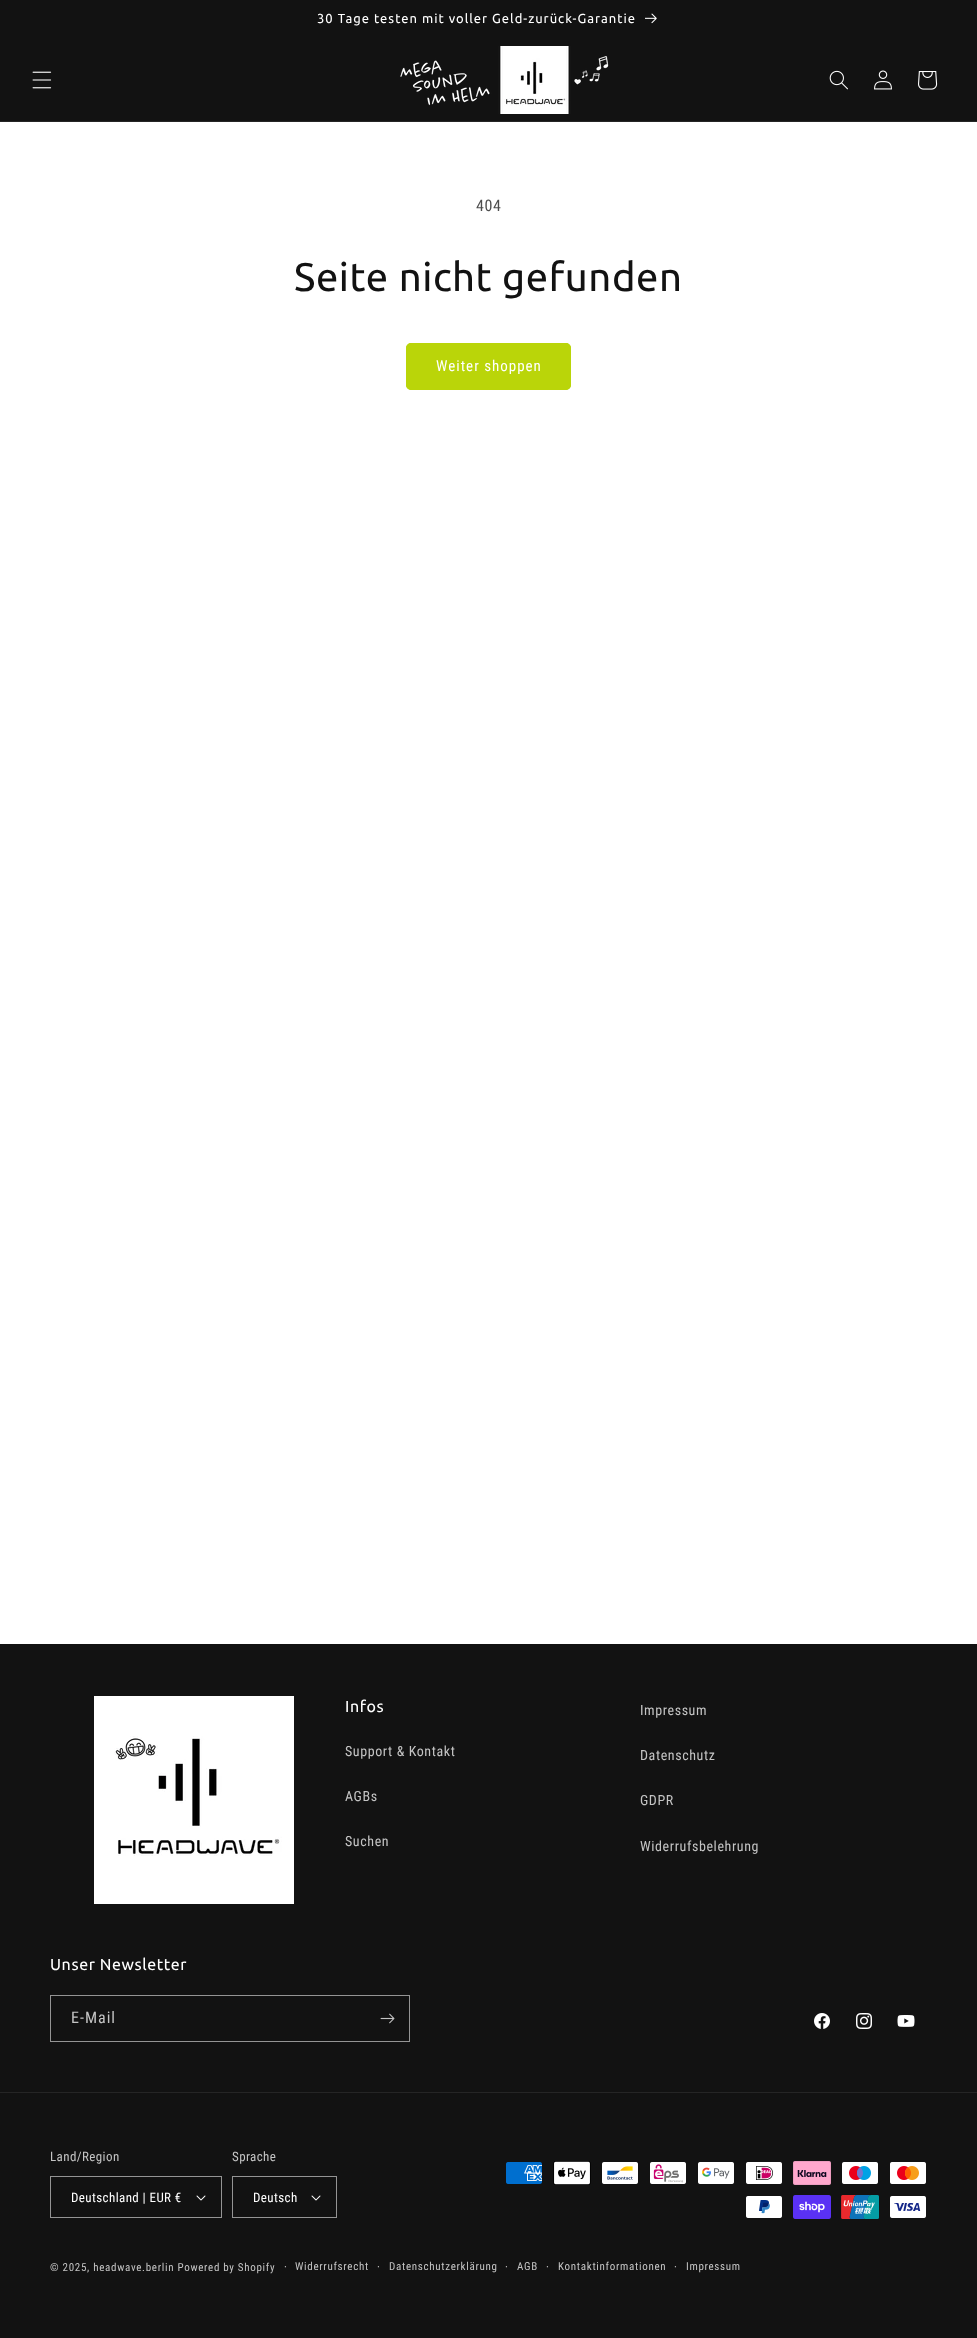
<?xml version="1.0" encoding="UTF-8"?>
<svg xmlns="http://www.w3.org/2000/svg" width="977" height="2338">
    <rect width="100%" height="100%" fill="#FFFFFF"/>
    <rect x="0" y="0" width="977" height="121" fill="#121212"/>
    <rect x="0" y="121" width="977" height="1" fill="#252525"/>
    <image x="32" y="71" width="20" height="18" href="img_01.png"/>
    <image x="400" y="46" width="209" height="68" href="img_02.png"/>
    <image x="829" y="70" width="19" height="20" href="img_03.png"/>
    <image x="874" y="70" width="18" height="20" href="img_04.png"/>
    <image x="918" y="71" width="20" height="19" href="img_05.png"/>
    <text x="317" y="23" font-family="Ubuntu" font-size="13" letter-spacing="1" fill="#FFFFFF">30 Tage testen mit voller Geld-zurück-Garantie</text>
    <image x="645" y="13" width="12" height="11" href="img_06.png"/>
    <text x="476" y="211" font-family="Roboto Condensed" font-size="16" letter-spacing="0.6" fill="#4D4D4D">404</text>
    <text x="294" y="291" font-family="Ubuntu" font-size="40" letter-spacing="0.6" fill="#121212">Seite nicht gefunden</text>
    <rect x="406" y="343" width="165" height="47" rx="5" fill="#BAD509"/>
    <rect x="406.5" y="343.5" width="164" height="46" rx="4.5" fill="none" stroke="#BAD509"/>
    <text x="436" y="371" font-family="Roboto Condensed" font-size="15" letter-spacing="1" fill="#FFFFFF">Weiter shoppen</text>
    <rect x="0" y="1644" width="977" height="694" fill="#121212"/>
    <image x="94" y="1696" width="200" height="208" href="img_07.png"/>
    <text x="345" y="1712" font-family="Ubuntu" font-size="16" letter-spacing="0.6" fill="#FFFFFF">Infos</text>
    <text x="345" y="1756" font-family="Roboto Condensed" font-size="14" letter-spacing="0.6" fill="#C4C4C4">Support &amp; Kontakt</text>
    <text x="345" y="1801" font-family="Roboto Condensed" font-size="14" letter-spacing="0.6" fill="#C4C4C4">AGBs</text>
    <text x="345" y="1846" font-family="Roboto Condensed" font-size="14" letter-spacing="0.6" fill="#C4C4C4">Suchen</text>
    <text x="640" y="1715" font-family="Roboto Condensed" font-size="14" letter-spacing="0.6" fill="#C4C4C4">Impressum</text>
    <text x="640" y="1760" font-family="Roboto Condensed" font-size="14" letter-spacing="0.6" fill="#C4C4C4">Datenschutz</text>
    <text x="640" y="1805" font-family="Roboto Condensed" font-size="14" letter-spacing="0.6" fill="#C4C4C4">GDPR</text>
    <text x="640" y="1851" font-family="Roboto Condensed" font-size="14" letter-spacing="0.6" fill="#C4C4C4">Widerrufsbelehrung</text>
    <text x="50" y="1970" font-family="Ubuntu" font-size="16" letter-spacing="0.6" fill="#FFFFFF">Unser Newsletter</text>
    <rect x="50.5" y="1995.5" width="359" height="46" fill="none" stroke="#949494"/>
    <text x="71" y="2023" font-family="Roboto Condensed" font-size="16" letter-spacing="1" fill="#C4C4C4">E-Mail</text>
    <image x="380" y="2013" width="15" height="11" href="img_08.png"/>
    <image x="814" y="2013" width="16" height="16" href="img_09.png"/>
    <image x="856" y="2013" width="16" height="16" href="img_10.png"/>
    <image x="897" y="2015" width="18" height="12" href="img_11.png"/>
    <rect x="0" y="2092" width="977" height="1" fill="#252525"/>
    <text x="50" y="2161" font-family="Roboto Condensed" font-size="13" letter-spacing="0.4" fill="#C4C4C4">Land/Region</text>
    <image x="196" y="2195" width="10" height="6" href="img_12.png"/>
    <rect x="50.5" y="2176.5" width="171" height="41" fill="none" stroke="#949494"/>
    <text x="71" y="2202" font-family="Roboto Condensed" font-size="13" letter-spacing="0.4" fill="#FFFFFF">Deutschland | EUR €</text>
    <text x="232" y="2161" font-family="Roboto Condensed" font-size="13" letter-spacing="0.4" fill="#C4C4C4">Sprache</text>
    <image x="311" y="2195" width="10" height="6" href="img_12.png"/>
    <rect x="232.5" y="2176.5" width="104" height="41" fill="none" stroke="#949494"/>
    <text x="253" y="2202" font-family="Roboto Condensed" font-size="13" letter-spacing="0.4" fill="#FFFFFF">Deutsch</text>
    <image x="506" y="2162" width="36" height="22" href="img_13.png"/>
    <image x="553" y="2161" width="38" height="24" href="img_14.png"/>
    <image x="602" y="2162" width="36" height="22" href="img_15.png"/>
    <image x="650" y="2162" width="36" height="22" href="img_16.png"/>
    <image x="698" y="2162" width="36" height="22" href="img_17.png"/>
    <image x="746" y="2162" width="36" height="22" href="img_18.png"/>
    <image x="793" y="2161" width="38" height="24" href="img_19.png"/>
    <image x="842" y="2162" width="36" height="22" href="img_20.png"/>
    <image x="890" y="2162" width="36" height="22" href="img_21.png"/>
    <image x="746" y="2196" width="36" height="22" href="img_22.png"/>
    <image x="793" y="2195" width="38" height="24" href="img_23.png"/>
    <image x="841" y="2195" width="38" height="24" href="img_24.png"/>
    <image x="890" y="2196" width="36" height="22" href="img_25.png"/>
    <text x="50" y="2271" font-family="Roboto Condensed" font-size="11" letter-spacing="0.7" fill="#C4C4C4">© 2025, headwave.berlin Powered by Shopify</text>
    <text x="284" y="2271" font-family="Roboto Condensed" font-size="12" letter-spacing="0.7" fill="#C4C4C4">·</text>
    <text x="295" y="2270" font-family="Roboto Condensed" font-size="11" letter-spacing="0.7" fill="#C4C4C4">Widerrufsrecht</text>
    <text x="377" y="2271" font-family="Roboto Condensed" font-size="12" letter-spacing="0.7" fill="#C4C4C4">·</text>
    <text x="389" y="2270" font-family="Roboto Condensed" font-size="11" letter-spacing="0.7" fill="#C4C4C4">Datenschutzerklärung</text>
    <text x="505" y="2271" font-family="Roboto Condensed" font-size="12" letter-spacing="0.7" fill="#C4C4C4">·</text>
    <text x="517" y="2270" font-family="Roboto Condensed" font-size="11" letter-spacing="0.7" fill="#C4C4C4">AGB</text>
    <text x="546" y="2271" font-family="Roboto Condensed" font-size="12" letter-spacing="0.7" fill="#C4C4C4">·</text>
    <text x="558" y="2270" font-family="Roboto Condensed" font-size="11" letter-spacing="0.7" fill="#C4C4C4">Kontaktinformationen</text>
    <text x="674" y="2271" font-family="Roboto Condensed" font-size="12" letter-spacing="0.7" fill="#C4C4C4">·</text>
    <text x="686" y="2270" font-family="Roboto Condensed" font-size="11" letter-spacing="0.7" fill="#C4C4C4">Impressum</text>
</svg>
